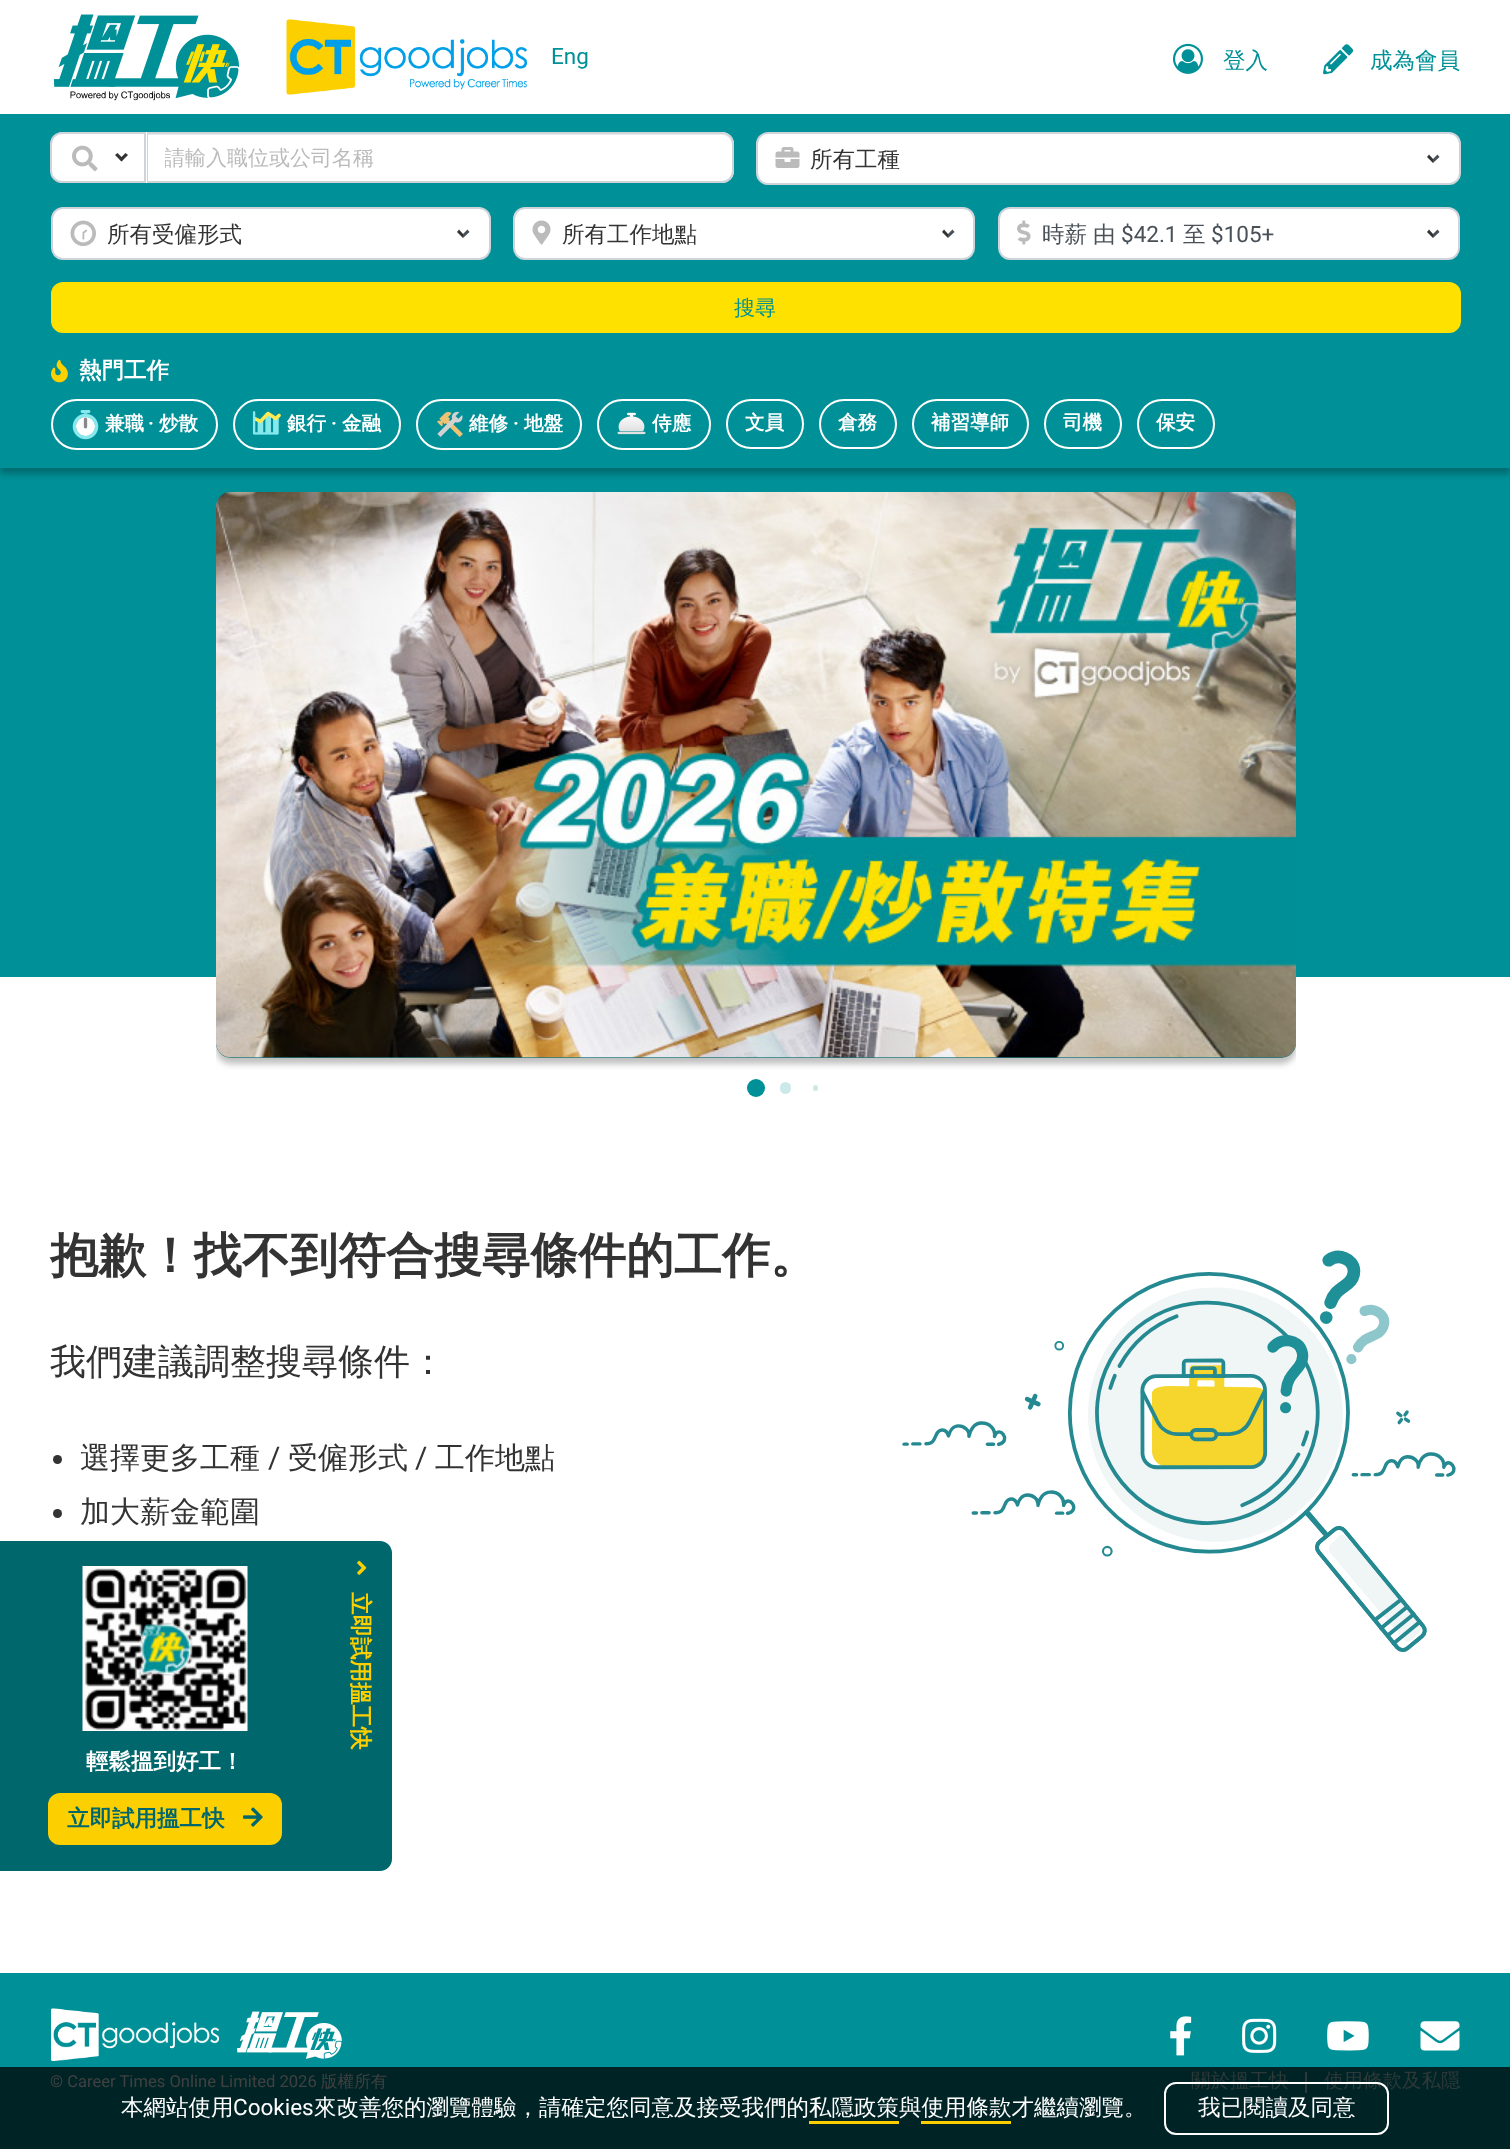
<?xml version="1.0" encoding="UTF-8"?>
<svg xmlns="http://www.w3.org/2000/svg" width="1510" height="2149">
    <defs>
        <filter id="blur1" x="-50%" y="-200%" width="200%" height="500%"><feGaussianBlur stdDeviation="3"/></filter>
        <clipPath id="clip1"><rect x="165" y="146" width="549" height="27"/></clipPath>
        <clipPath id="clip2"><rect x="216" y="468" width="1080" height="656"/></clipPath>
    </defs>
    <rect width="100%" height="100%" fill="#FFFFFF"/>
    <image x="53" y="14" width="186" height="87" href="img_01.png"/>
    <image x="286" y="19" width="241" height="76" href="img_02.png"/>
    <text x="551" y="64" font-family="Roboto" font-size="22.5" fill="#009097">Eng</text>
    <image x="1173" y="43" width="30" height="31" href="img_03.png"/>
    <text x="1223" y="68" font-family="WenQuanYi Zen Hei" font-size="22.5" font-weight="500" fill="#009097">登入</text>
    <image x="1323" y="44" width="30" height="31" href="img_04.png"/>
    <text x="1370" y="68" font-family="WenQuanYi Zen Hei" font-size="22.5" font-weight="500" fill="#009097">成為會員</text>
    <rect x="0" y="468" width="1510" height="509" fill="#009097"/>
    <rect x="0" y="120" width="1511" height="354" fill="#000000" fill-opacity="0.25" filter="url(#blur1)"/>
    <rect x="0" y="114" width="1510" height="354" fill="#009097"/>
    <path d="M 146 132 H 722 C 728.5 132 734 137.5 734 144 V 171 C 734 177.5 728.5 183 722 183 H 146 Z" fill="#FFFFFF"/>
    <path d="M 147 135 H 722 C 727 135 732 140 732 146 C 732 140 728 134 721 134 H 147 Z" fill="#ECECEC"/>
    <path d="M 147 133 H 722 C 728 133 733 138 733 144 V 171 C 733 177 728 182 722 182 H 147 Z" fill="none" stroke="#CED4DA" stroke-width="2"/>
    <path d="M 63 132 H 147 V 183 H 63 C 56.5 183 51 177.5 51 171 V 144 C 51 137.5 56.5 132 63 132 Z" fill="#FFFFFF"/>
    <path d="M 62 133 H 145 V 182 H 62 C 56 182 51 177 51 171 V 144 C 51 138 56 133 62 133 Z" fill="#FFFFFF" stroke="#CED4DA" stroke-width="2"/>
    <image x="72" y="145" width="26" height="27" href="img_05.png"/>
    <path d="M 128 155 L 121.5 161.5 L 119.5 159 L 125.5 153 Z" fill="#333333"/>
    <path d="M 123.5 159 L 121.5 161.5 L 115 155 L 117.5 153 Z" fill="#333333"/>
    <g clip-path="url(#clip1)">
        <text x="164" y="165" font-family="WenQuanYi Zen Hei" font-size="21" font-weight="500" fill="#BBBBBB">請輸入職位或公司名稱</text>
    </g>
    <rect x="757" y="133" width="703" height="51" rx="11" fill="#FFFFFF" stroke="#CED4DA" stroke-width="2"/>
    <image x="775" y="147" width="25" height="21" href="img_06.png"/>
    <text x="810" y="167" font-family="WenQuanYi Zen Hei" font-size="22.5" font-weight="500" fill="#333333">所有工種</text>
    <path d="M 1439.5 157 L 1433 163 V 159 L 1437.5 154.5 Z" fill="#495057"/>
    <path d="M 1433 163 L 1427 157 L 1429 154.5 L 1433 159 Z" fill="#333333"/>
    <rect x="52" y="208" width="438" height="51" rx="11" fill="#FFFFFF" stroke="#CED4DA" stroke-width="2"/>
    <image x="70" y="220" width="26" height="26" href="img_07.png"/>
    <text x="107" y="242" font-family="WenQuanYi Zen Hei" font-size="22.5" font-weight="500" fill="#333333">所有受僱形式</text>
    <path d="M 469.5 232 L 463 238 V 234 L 467.5 229.5 Z" fill="#495057"/>
    <path d="M 463 238 L 457 232 L 459 229.5 L 463 234 Z" fill="#333333"/>
    <rect x="514" y="208" width="460" height="51" rx="11" fill="#FFFFFF" stroke="#CED4DA" stroke-width="2"/>
    <image x="532" y="220" width="19" height="25" href="img_08.png"/>
    <text x="562" y="242" font-family="WenQuanYi Zen Hei" font-size="22.5" font-weight="500" fill="#333333">所有工作地點</text>
    <path d="M 954.5 232 L 948 238 V 234 L 952.5 229.5 Z" fill="#495057"/>
    <path d="M 948 238 L 942 232 L 944 229.5 L 948 234 Z" fill="#333333"/>
    <rect x="999" y="208" width="460" height="51" rx="11" fill="#FFFFFF" stroke="#CED4DA" stroke-width="2"/>
    <image x="1017" y="220" width="14" height="25" href="img_09.png"/>
    <text x="1042" y="242" font-family="WenQuanYi Zen Hei" font-size="22.5" font-weight="500" fill="#495057">時薪</text>
    <text x="1093" y="242" font-family="WenQuanYi Zen Hei" font-size="22.5" font-weight="500" fill="#495057">由</text>
    <text x="1121" y="242" font-family="Roboto" font-size="22.5" fill="#495057">$42.1</text>
    <text x="1183" y="242" font-family="WenQuanYi Zen Hei" font-size="22.5" font-weight="500" fill="#495057">至</text>
    <text x="1211" y="242" font-family="Roboto" font-size="22.5" fill="#495057">$105+</text>
    <path d="M 1439.5 232 L 1433 238 V 234 L 1437.5 229.5 Z" fill="#495057"/>
    <path d="M 1433 238 L 1427 232 L 1429 229.5 L 1433 234 Z" fill="#333333"/>
    <rect x="52" y="283" width="1408" height="49" rx="11" fill="#FFE100" stroke="#FFE100" stroke-width="2"/>
    <text x="734" y="315" font-family="WenQuanYi Zen Hei" font-size="21" font-weight="500" fill="#009097">搜尋</text>
    <image x="51" y="359" width="17" height="24" href="img_10.png"/>
    <text x="79" y="378" font-family="WenQuanYi Zen Hei" font-size="22.5" font-weight="700" fill="#FFFFFF">熱門工作</text>
    <rect x="52" y="400" width="165" height="49" rx="24.5" fill="none" stroke="#FFFFFF" stroke-width="2"/>
    <image x="72" y="410" width="27" height="30" href="img_11.png"/>
    <text x="105" y="430" font-family="WenQuanYi Zen Hei" font-size="19.5" font-weight="700" fill="#FFFFFF">兼職</text>
    <text x="148" y="430" font-family="Roboto" font-size="19.5" font-weight="700" fill="#FFFFFF">·</text>
    <text x="159" y="430" font-family="WenQuanYi Zen Hei" font-size="19.5" font-weight="700" fill="#FFFFFF">炒散</text>
    <rect x="234" y="400" width="166" height="49" rx="24.5" fill="none" stroke="#FFFFFF" stroke-width="2"/>
    <image x="252" y="411" width="29" height="24" href="img_12.png"/>
    <text x="287" y="430" font-family="WenQuanYi Zen Hei" font-size="19.5" font-weight="700" fill="#FFFFFF">銀行</text>
    <text x="331" y="430" font-family="Roboto" font-size="19.5" font-weight="700" fill="#FFFFFF">·</text>
    <text x="342" y="430" font-family="WenQuanYi Zen Hei" font-size="19.5" font-weight="700" fill="#FFFFFF">金融</text>
    <rect x="417" y="400" width="164" height="49" rx="24.5" fill="none" stroke="#FFFFFF" stroke-width="2"/>
    <image x="437" y="411" width="26" height="26" href="img_13.png"/>
    <text x="469" y="430" font-family="WenQuanYi Zen Hei" font-size="19.5" font-weight="700" fill="#FFFFFF">維修</text>
    <text x="513" y="430" font-family="Roboto" font-size="19.5" font-weight="700" fill="#FFFFFF">·</text>
    <text x="524" y="430" font-family="WenQuanYi Zen Hei" font-size="19.5" font-weight="700" fill="#FFFFFF">地盤</text>
    <rect x="598" y="400" width="112" height="49" rx="24.5" fill="none" stroke="#FFFFFF" stroke-width="2"/>
    <image x="617" y="412" width="29" height="23" href="img_14.png"/>
    <text x="652" y="430" font-family="WenQuanYi Zen Hei" font-size="19.5" font-weight="700" fill="#FFFFFF">侍應</text>
    <rect x="727" y="400" width="76" height="48" rx="24" fill="none" stroke="#FFFFFF" stroke-width="2"/>
    <text x="745" y="429" font-family="WenQuanYi Zen Hei" font-size="19.5" font-weight="700" fill="#FFFFFF">文員</text>
    <rect x="820" y="400" width="76" height="48" rx="24" fill="none" stroke="#FFFFFF" stroke-width="2"/>
    <text x="838" y="429" font-family="WenQuanYi Zen Hei" font-size="19.5" font-weight="700" fill="#FFFFFF">倉務</text>
    <rect x="913" y="400" width="115" height="48" rx="24" fill="none" stroke="#FFFFFF" stroke-width="2"/>
    <text x="931" y="429" font-family="WenQuanYi Zen Hei" font-size="19.5" font-weight="700" fill="#FFFFFF">補習導師</text>
    <rect x="1045" y="400" width="76" height="48" rx="24" fill="none" stroke="#FFFFFF" stroke-width="2"/>
    <text x="1063" y="429" font-family="WenQuanYi Zen Hei" font-size="19.5" font-weight="700" fill="#FFFFFF">司機</text>
    <rect x="1138" y="400" width="76" height="48" rx="24" fill="none" stroke="#FFFFFF" stroke-width="2"/>
    <text x="1156" y="429" font-family="WenQuanYi Zen Hei" font-size="19.5" font-weight="700" fill="#FFFFFF">保安</text>
    <g clip-path="url(#clip2)">
        <rect x="216" y="498" width="1080" height="566" rx="15" fill="#000000" fill-opacity="0.25" filter="url(#blur1)"/>
    </g>
    <rect x="216" y="492" width="1080" height="566" rx="15" fill="#227A7E"/>
    <image x="216" y="492" width="1080" height="566" href="img_15.png"/>
    <circle cx="756" cy="1088" r="9" fill="#009097"/>
    <rect x="780" y="1082" width="11" height="12" rx="5.5" fill="#CCE9EA"/>
    <rect x="813" y="1085" width="5" height="6" rx="2.5" fill="#CCE9EA"/>
    <text x="50" y="1272" font-family="WenQuanYi Zen Hei" font-size="48" font-weight="700" fill="#333333">抱歉！找不到符合搜尋條件的工作。</text>
    <text x="50" y="1374" font-family="WenQuanYi Zen Hei" font-size="36" font-weight="500" fill="#333333">我們建議調整搜尋條件：</text>
    <circle cx="57.5" cy="1459.5" r="4.5" fill="#333333"/>
    <text x="80" y="1468" font-family="WenQuanYi Zen Hei" font-size="30" font-weight="500" fill="#333333">選擇更多工種</text>
    <text x="268" y="1468" font-family="Roboto" font-size="30" fill="#333333">/</text>
    <text x="288" y="1468" font-family="WenQuanYi Zen Hei" font-size="30" font-weight="500" fill="#333333">受僱形式</text>
    <text x="415" y="1468" font-family="Roboto" font-size="30" fill="#333333">/</text>
    <text x="435" y="1468" font-family="WenQuanYi Zen Hei" font-size="30" font-weight="500" fill="#333333">工作地點</text>
    <circle cx="57.5" cy="1513.5" r="4.5" fill="#333333"/>
    <text x="80" y="1522" font-family="WenQuanYi Zen Hei" font-size="30" font-weight="500" fill="#333333">加大薪金範圍</text>
    <image x="902" y="1250" width="554" height="402" href="img_16.png"/>
    <path d="M 329 1541 H 380 C 386.5 1541 392 1546.5 392 1553 V 1859 C 392 1865.5 386.5 1871 380 1871 H 329 Z" fill="#00676C"/>
    <image x="357" y="1560" width="10" height="15" href="img_17.png"/>
    <text x="353" y="1592" transform="rotate(90 353 1592)" font-family="WenQuanYi Zen Hei" font-size="22.5" font-weight="700" fill="#FCCF00">立即試用搵工快</text>
    <rect x="0" y="1541" width="329" height="330" fill="#00676C"/>
    <image x="82" y="1566" width="166" height="165" href="img_18.png"/>
    <text x="86" y="1769" font-family="WenQuanYi Zen Hei" font-size="22.5" font-weight="700" fill="#FFFFFF">輕鬆搵到好工！</text>
    <rect x="48" y="1793" width="234" height="52" rx="12" fill="#FCCF00"/>
    <text x="67" y="1826" font-family="WenQuanYi Zen Hei" font-size="22.5" font-weight="700" fill="#00676C">立即試用搵工快</text>
    <image x="243" y="1807" width="20" height="20" href="img_19.png"/>
    <rect x="0" y="1973" width="1510" height="94" fill="#009097"/>
    <rect x="0" y="2067" width="1510" height="82" fill="#002426"/>
    <image x="51" y="2008" width="168" height="53" href="img_20.png"/>
    <image x="237" y="2011" width="105" height="48" href="img_21.png"/>
    <text x="50" y="2087" font-family="Roboto" font-size="16.6" fill="#404040">© Career Times Online Limited 2026</text>
    <text x="321" y="2087" font-family="WenQuanYi Zen Hei" font-size="16.6" font-weight="500" fill="#404040">版權所有</text>
    <image x="1170" y="2016" width="22" height="40" href="img_22.png"/>
    <image x="1242" y="2018" width="35" height="35" href="img_23.png"/>
    <image x="1327" y="2021" width="42" height="30" href="img_24.png"/>
    <image x="1420" y="2021" width="40" height="30" href="img_25.png"/>
    <text x="1191" y="2087" font-family="WenQuanYi Zen Hei" font-size="19.5" font-weight="500" fill="#2D3838">關於搵工快</text>
    <rect x="1305" y="2072" width="2" height="21" fill="#2D3838"/>
    <text x="1324" y="2087" font-family="WenQuanYi Zen Hei" font-size="19.5" font-weight="500" fill="#2D3838">使用條款及私隱</text>
    <text x="121" y="2115" font-family="WenQuanYi Zen Hei" font-size="22.5" font-weight="500" fill="#FFFFFF">本網站使用</text>
    <text x="233" y="2115" font-family="Roboto" font-size="22.5" fill="#FFFFFF">Cookies</text>
    <text x="314" y="2115" font-family="WenQuanYi Zen Hei" font-size="22.5" font-weight="500" fill="#FFFFFF">來改善您的瀏覽體驗，請確定您同意及接受我們的私隱政策與使用條款才繼續瀏覽。</text>
    <rect x="809" y="2121" width="90" height="3" fill="#FCCF00"/>
    <rect x="921" y="2121" width="90" height="3" fill="#FCCF00"/>
    <rect x="1165" y="2083" width="223" height="51" rx="11" fill="none" stroke="#FFFFFF" stroke-width="2"/>
    <text x="1198" y="2115" font-family="WenQuanYi Zen Hei" font-size="22.5" font-weight="500" fill="#FFFFFF">我已閱讀及同意</text>
</svg>
